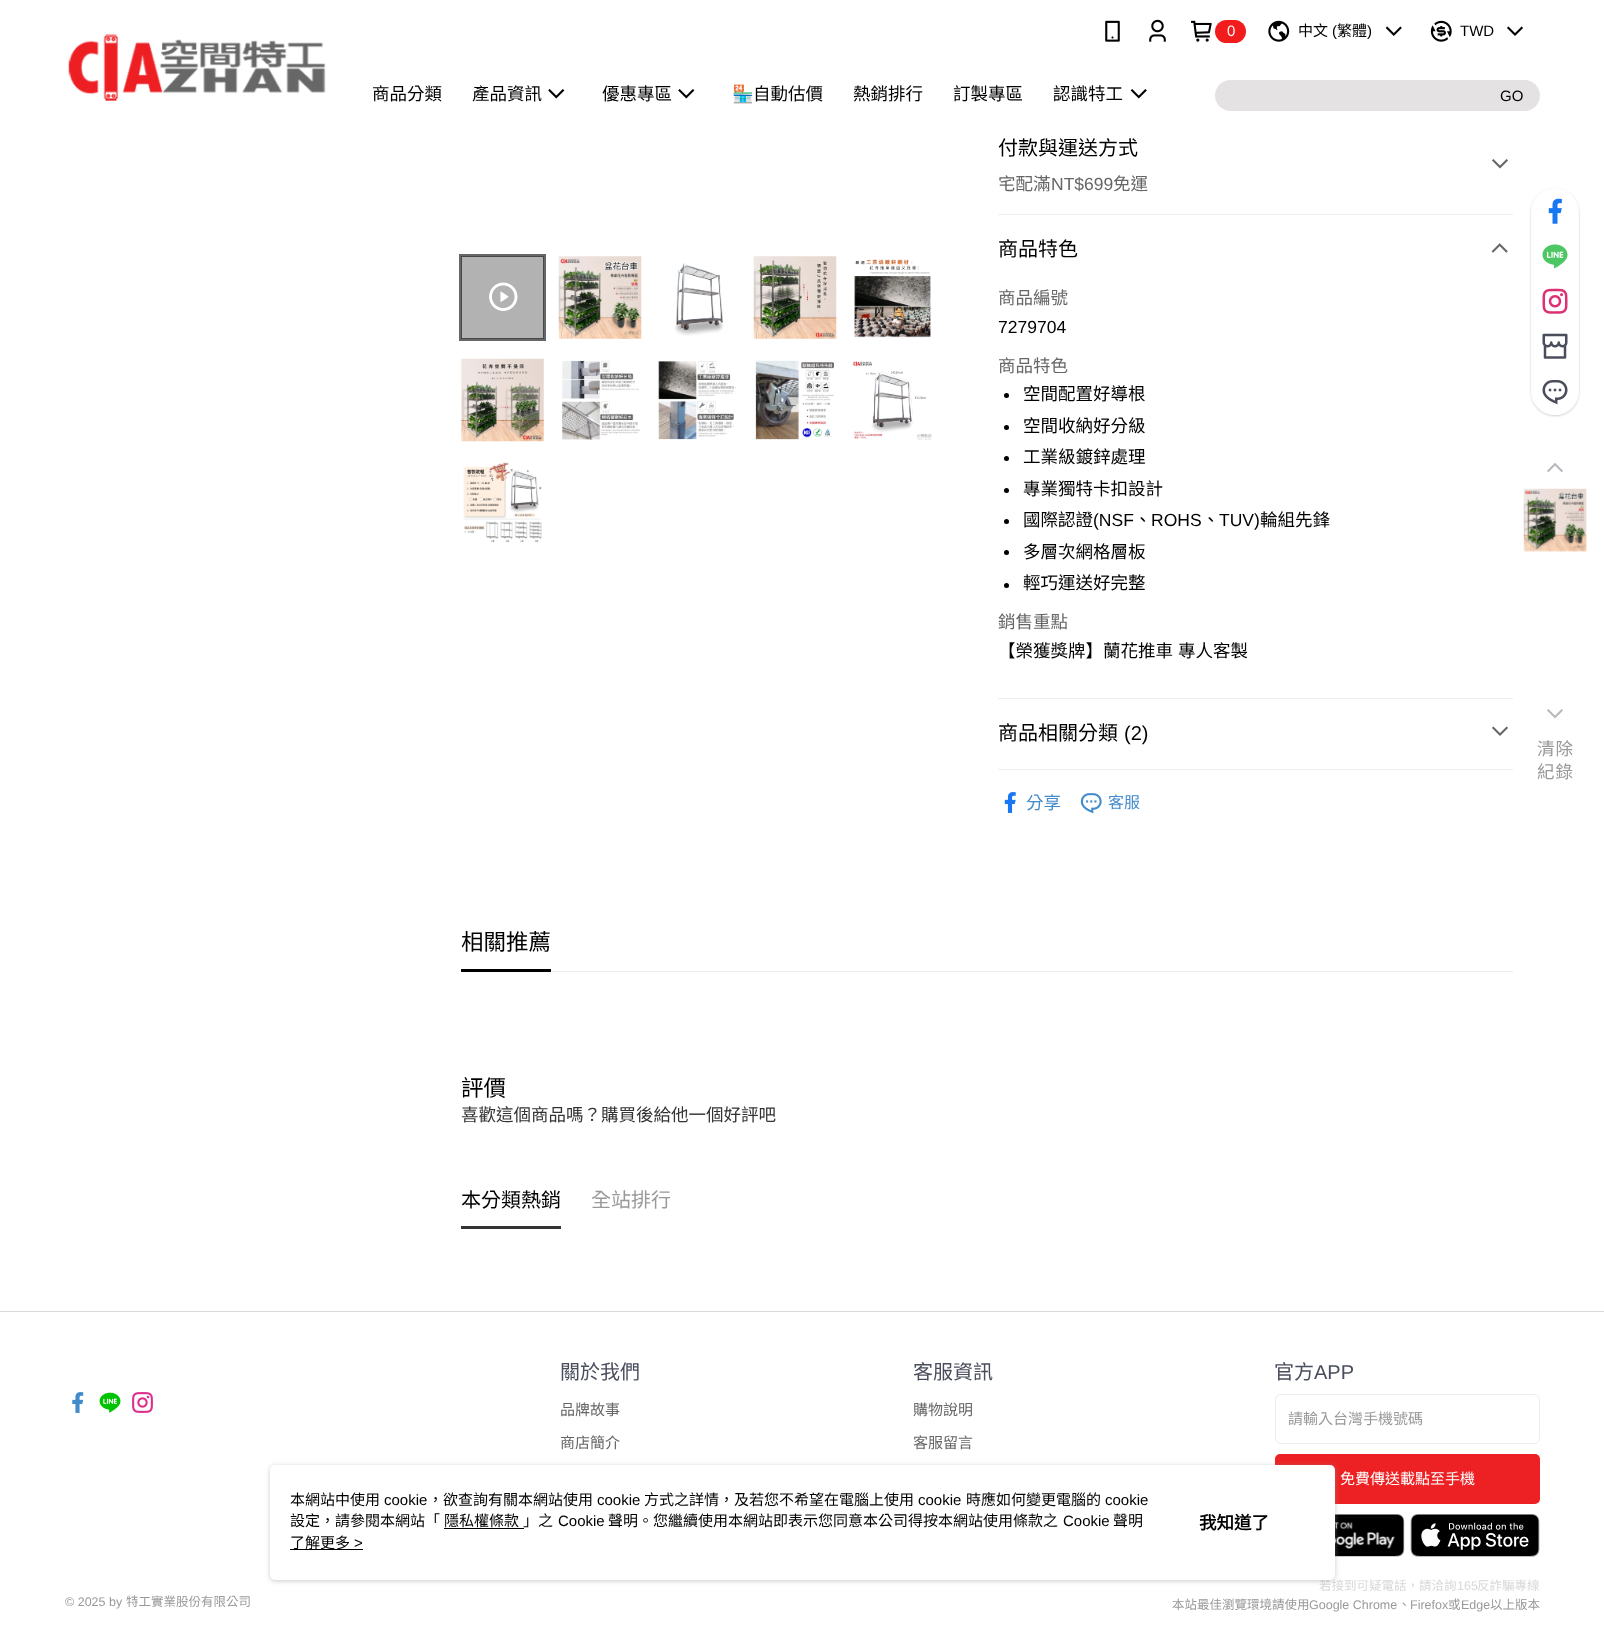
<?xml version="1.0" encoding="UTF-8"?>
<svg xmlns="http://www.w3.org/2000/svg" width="1604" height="1637">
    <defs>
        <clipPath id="clip1"><path d="M 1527 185 H 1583 V 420 H 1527 Z M 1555 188 C 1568.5 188 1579 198.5 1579 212 V 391 C 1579 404.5 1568.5 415 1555 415 C 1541.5 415 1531 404.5 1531 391 V 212 C 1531 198.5 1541.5 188 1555 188 Z" clip-rule="evenodd"/></clipPath>
        <filter id="blur1" x="-50%" y="-200%" width="200%" height="500%"><feGaussianBlur stdDeviation="1"/></filter>
        <filter id="blur2" x="-50%" y="-200%" width="200%" height="500%"><feGaussianBlur stdDeviation="2.5"/></filter>
    </defs>
    <rect width="100%" height="100%" fill="#FFFFFF"/>
    <image x="68" y="34" width="258" height="67" href="img_01.png"/>
    <image x="1105" y="20" width="15" height="22" href="img_02.png"/>
    <image x="1149" y="19" width="17" height="23" href="img_03.png"/>
    <image x="1191" y="20" width="21" height="22" href="img_04.png"/>
    <rect x="1215" y="20" width="31" height="23" rx="11.5" fill="#F31C1C"/>
    <text x="1227" y="36" font-family="Liberation Sans" font-size="15" fill="#FFFFFF">0</text>
    <image x="1268" y="20" width="22" height="22" href="img_05.png"/>
    <text x="1298" y="36" font-family="Noto Sans CJK TC" font-size="15" fill="#000000">中文</text>
    <text x="1332" y="36" font-family="Liberation Sans" font-size="15" fill="#000000">(</text>
    <text x="1337" y="36" font-family="Noto Sans CJK TC" font-size="15" fill="#000000">繁體</text>
    <text x="1367" y="36" font-family="Liberation Sans" font-size="15" fill="#000000">)</text>
    <image x="1385" y="26" width="17" height="10" href="img_06.png"/>
    <image x="1430" y="20" width="22" height="22" href="img_07.png"/>
    <text x="1460" y="36" font-family="Liberation Sans" font-size="15" fill="#000000">TWD</text>
    <image x="1507" y="26" width="16" height="10" href="img_08.png"/>
    <text x="372" y="100" font-family="Noto Sans CJK TC" font-size="17.5" fill="#000000">商品分類</text>
    <text x="472" y="100" font-family="Noto Sans CJK TC" font-size="17.5" fill="#000000">產品資訊</text>
    <image x="548" y="89" width="17" height="10" href="img_09.png"/>
    <text x="602" y="100" font-family="Noto Sans CJK TC" font-size="17.5" fill="#000000">優惠專區</text>
    <image x="678" y="89" width="17" height="10" href="img_09.png"/>
    <text x="732" y="100" font-family="Noto Color Emoji" font-size="17.5" fill="#000000">🏪</text>
    <text x="753" y="100" font-family="Noto Sans CJK TC" font-size="17.5" fill="#000000">自動估價</text>
    <text x="853" y="100" font-family="Noto Sans CJK TC" font-size="17.5" fill="#000000">熱銷排行</text>
    <text x="953" y="100" font-family="Noto Sans CJK TC" font-size="17.5" fill="#000000">訂製專區</text>
    <text x="1053" y="100" font-family="Noto Sans CJK TC" font-size="17.5" fill="#000000">認識特工</text>
    <image x="1130" y="89" width="17" height="10" href="img_10.png"/>
    <path d="M 1230.5 80 H 1483 V 111 H 1230.5 C 1222 111 1215 104 1215 95.5 C 1215 87 1222 80 1230.5 80 Z" fill="#E4E2E2"/>
    <path d="M 1483 80 H 1524.5 C 1533 80 1540 87 1540 95.5 C 1540 104 1533 111 1524.5 111 H 1483 Z" fill="#E4E2E2"/>
    <text x="1500" y="101" font-family="Liberation Sans" font-size="15" fill="#000000">GO</text>
    <rect x="460.5" y="255.5" width="84" height="84" fill="none" stroke="#666666" stroke-width="3"/>
    <rect x="461" y="256" width="83" height="83" fill="#000000" fill-opacity="0.3"/>
    <image x="489" y="282" width="29" height="29" href="img_11.png"/>
    <image x="558" y="256" width="84" height="83" href="img_12.png"/>
    <image x="674" y="263" width="50" height="73" href="img_13.png"/>
    <image x="753" y="256" width="84" height="83" href="img_14.png"/>
    <image x="854" y="259" width="77" height="79" href="img_15.png"/>
    <image x="461" y="358" width="83" height="84" href="img_16.png"/>
    <image x="562" y="360" width="79" height="80" href="img_17.png"/>
    <image x="658" y="361" width="79" height="79" href="img_18.png"/>
    <image x="755" y="360" width="79" height="80" href="img_19.png"/>
    <image x="852" y="361" width="80" height="79" href="img_20.png"/>
    <image x="463" y="462" width="79" height="81" href="img_21.png"/>
    <rect x="998" y="214" width="515" height="1" fill="#ECEFF1"/>
    <text x="998" y="155" font-family="Noto Sans CJK TC" font-size="20" fill="#000000">付款與運送方式</text>
    <text x="998" y="190" font-family="Noto Sans CJK TC" font-size="17.5" fill="#666666">宅配滿</text>
    <text x="1051" y="190" font-family="Liberation Sans" font-size="17.5" fill="#666666">NT$699</text>
    <text x="1113" y="190" font-family="Noto Sans CJK TC" font-size="17.5" fill="#666666">免運</text>
    <image x="1492" y="159" width="16" height="10" href="img_22.png"/>
    <rect x="998" y="698" width="515" height="1" fill="#ECEFF1"/>
    <text x="998" y="256" font-family="Noto Sans CJK TC" font-size="20" fill="#000000">商品特色</text>
    <image x="1491" y="243" width="17" height="10" href="img_23.png"/>
    <text x="998" y="304" font-family="Noto Sans CJK TC" font-size="17.5" fill="#666666">商品編號</text>
    <text x="998" y="333" font-family="Liberation Sans" font-size="17.5" fill="#000000">7279704</text>
    <text x="998" y="372" font-family="Noto Sans CJK TC" font-size="17.5" fill="#666666">商品特色</text>
    <circle cx="1006.5" cy="395.5" r="2.5" fill="#000000"/>
    <text x="1023" y="400" font-family="Noto Sans CJK TC" font-size="17.5" fill="#000000">空間配置好導根</text>
    <circle cx="1006.5" cy="427.5" r="2.5" fill="#000000"/>
    <text x="1023" y="432" font-family="Noto Sans CJK TC" font-size="17.5" fill="#000000">空間收納好分級</text>
    <circle cx="1006.5" cy="458.5" r="2.5" fill="#000000"/>
    <text x="1023" y="463" font-family="Noto Sans CJK TC" font-size="17.5" fill="#000000">工業級鍍鋅處理</text>
    <circle cx="1006.5" cy="490.5" r="2.5" fill="#000000"/>
    <text x="1023" y="495" font-family="Noto Sans CJK TC" font-size="17.5" fill="#000000">專業獨特卡扣設計</text>
    <circle cx="1006.5" cy="521.5" r="2.5" fill="#000000"/>
    <text x="1023" y="526" font-family="Noto Sans CJK TC" font-size="17.5" fill="#000000">國際認證</text>
    <text x="1093" y="526" font-family="Liberation Sans" font-size="17.5" fill="#000000">(NSF</text>
    <text x="1134" y="526" font-family="Noto Sans CJK TC" font-size="17.5" fill="#000000">、</text>
    <text x="1151" y="526" font-family="Liberation Sans" font-size="17.5" fill="#000000">ROHS</text>
    <text x="1202" y="526" font-family="Noto Sans CJK TC" font-size="17.5" fill="#000000">、</text>
    <text x="1219" y="526" font-family="Liberation Sans" font-size="17.5" fill="#000000">TUV)</text>
    <text x="1260" y="526" font-family="Noto Sans CJK TC" font-size="17.5" fill="#000000">輪組先鋒</text>
    <circle cx="1006.5" cy="552.5" r="2.5" fill="#000000"/>
    <text x="1023" y="558" font-family="Noto Sans CJK TC" font-size="17.5" fill="#000000">多層次網格層板</text>
    <circle cx="1006.5" cy="585.5" r="2.5" fill="#000000"/>
    <text x="1023" y="589" font-family="Noto Sans CJK TC" font-size="17.5" fill="#000000">輕巧運送好完整</text>
    <text x="998" y="628" font-family="Noto Sans CJK TC" font-size="17.5" fill="#666666">銷售重點</text>
    <text x="998" y="657" word-spacing="1" font-family="Noto Sans CJK TC" font-size="17.5" fill="#000000">【榮獲獎牌】蘭花推車 專人客製</text>
    <rect x="998" y="769" width="515" height="1" fill="#ECEFF1"/>
    <text x="998" y="740" font-family="Noto Sans CJK TC" font-size="20" fill="#000000">商品相關分類</text>
    <text x="1124" y="740" font-family="Liberation Sans" font-size="20" fill="#000000">(2)</text>
    <image x="1492" y="726" width="16" height="10" href="img_24.png"/>
    <image x="1004" y="792" width="12" height="21" href="img_25.png"/>
    <text x="1026" y="809" font-family="Noto Sans CJK TC" font-size="17.5" fill="#428BCA">分享</text>
    <image x="1080" y="793" width="22" height="21" href="img_26.png"/>
    <text x="1108" y="808" font-family="Noto Sans CJK TC" font-size="16" fill="#428BCA">客服</text>
    <rect x="551" y="971" width="962" height="1" fill="#ECECEC"/>
    <rect x="461" y="969" width="90" height="3" fill="#000000"/>
    <text x="461" y="950" font-family="Noto Sans CJK TC" font-size="22.5" fill="#000000">相關推薦</text>
    <text x="461" y="1096" font-family="Noto Sans CJK TC" font-size="22.5" fill="#000000">評價</text>
    <text x="461" y="1121" font-family="Noto Sans CJK TC" font-size="17.5" fill="#333333">喜歡這個商品嗎？購買後給他一個好評吧</text>
    <rect x="461" y="1226" width="100" height="3" fill="#333333"/>
    <text x="461" y="1207" font-family="Noto Sans CJK TC" font-size="20" fill="#000000">本分類熱銷</text>
    <text x="591" y="1207" font-family="Noto Sans CJK TC" font-size="20" fill="#999999">全站排行</text>
    <g clip-path="url(#clip1)">
        <rect x="1531" y="189" width="48" height="227" rx="24" fill="#000000" fill-opacity="0.2" filter="url(#blur1)"/>
    </g>
    <rect x="1531.5" y="188.5" width="47" height="226" rx="23.5" fill="#FFFFFF" fill-opacity="0.9" stroke="#FDFDFD"/>
    <image x="1548" y="198" width="14" height="26" href="img_27.png"/>
    <image x="1542" y="244" width="26" height="25" href="img_28.png"/>
    <image x="1542" y="288" width="26" height="26" href="img_29.png"/>
    <image x="1542" y="333" width="26" height="26" href="img_30.png"/>
    <image x="1542" y="380" width="26" height="25" href="img_31.png"/>
    <image x="1547" y="463" width="16" height="10" href="img_32.png"/>
    <image x="1523" y="488" width="64" height="64" href="img_33.png"/>
    <image x="1547" y="709" width="16" height="10" href="img_34.png"/>
    <text font-family="Noto Sans CJK TC" font-size="17.5" letter-spacing="1" fill="#999999">
        <tspan x="1537" y="755">清除</tspan>
        <tspan x="1537" y="778">紀錄</tspan>
    </text>
    <rect x="0" y="1311" width="1604" height="1" fill="#DADADA"/>
    <image x="72" y="1392" width="12" height="21" href="img_35.png"/>
    <image x="99" y="1392" width="22" height="21" href="img_36.png"/>
    <image x="132" y="1392" width="21" height="21" href="img_37.png"/>
    <text x="560" y="1379" font-family="Noto Sans CJK TC" font-size="20" fill="#4A4E5C">關於我們</text>
    <text x="560" y="1415" font-family="Noto Sans CJK TC" font-size="15" fill="#666666">品牌故事</text>
    <text x="560" y="1448" font-family="Noto Sans CJK TC" font-size="15" fill="#666666">商店簡介</text>
    <text x="913" y="1379" font-family="Noto Sans CJK TC" font-size="20" fill="#4A4E5C">客服資訊</text>
    <text x="913" y="1415" font-family="Noto Sans CJK TC" font-size="15" fill="#666666">購物說明</text>
    <text x="913" y="1448" font-family="Noto Sans CJK TC" font-size="15" fill="#666666">客服留言</text>
    <text x="1274" y="1379" font-family="Noto Sans CJK TC" font-size="20" fill="#4A4E5C">官方</text>
    <text x="1314" y="1379" font-family="Liberation Sans" font-size="20" fill="#4A4E5C">APP</text>
    <rect x="1275.5" y="1394.5" width="264" height="49" rx="5.5" fill="none" stroke="#EDEDED"/>
    <text x="1288" y="1424" font-family="Noto Sans CJK TC" font-size="15" fill="#999999">請輸入台灣手機號碼</text>
    <rect x="1275" y="1454" width="265" height="50" rx="5" fill="#ED2123"/>
    <text x="1340" y="1484" font-family="Noto Sans CJK TC" font-size="15" fill="#FFFFFF">免費傳送載點至手機</text>
    <image x="1335" y="1514" width="70" height="43" href="img_38.png"/>
    <image x="1410" y="1514" width="130" height="43" href="img_39.png"/>
    <text x="1319" y="1590" font-family="Noto Sans CJK TC" font-size="12.5" fill="#D8D8D8">若接到可疑電話，請洽詢</text>
    <text x="1457" y="1590" font-family="Liberation Sans" font-size="12.5" fill="#D8D8D8">165</text>
    <text x="1477" y="1590" font-family="Noto Sans CJK TC" font-size="12.5" fill="#D8D8D8">反詐騙專線</text>
    <text x="65" y="1606" font-family="Liberation Sans" font-size="12.5" fill="#999999">© 2025 by</text>
    <text x="126" y="1606" font-family="Noto Sans CJK TC" font-size="12.5" fill="#999999">特工實業股份有限公司</text>
    <text x="1172" y="1609" font-family="Noto Sans CJK TC" font-size="12.5" fill="#999999">本站最佳瀏覽環境請使用</text>
    <text x="1309" y="1609" font-family="Liberation Sans" font-size="12.5" fill="#999999">Google Chrome</text>
    <text x="1398" y="1609" font-family="Noto Sans CJK TC" font-size="12.5" fill="#999999">、</text>
    <text x="1410" y="1609" font-family="Liberation Sans" font-size="12.5" fill="#999999">Firefox</text>
    <text x="1448" y="1609" font-family="Noto Sans CJK TC" font-size="12.5" fill="#999999">或</text>
    <text x="1461" y="1609" font-family="Liberation Sans" font-size="12.5" fill="#999999">Edge</text>
    <text x="1490" y="1609" font-family="Noto Sans CJK TC" font-size="12.5" fill="#999999">以上版本</text>
    <rect x="270" y="1466" width="1065" height="115" rx="5" fill="#979797" fill-opacity="0.5" filter="url(#blur2)"/>
    <rect x="270" y="1465" width="1065" height="115" rx="5" fill="#FFFFFF"/>
    <text x="290" y="1505" font-family="Noto Sans CJK TC" font-size="15" fill="#000000">本網站中使用</text>
    <text x="384" y="1505" font-family="Liberation Sans" font-size="15" fill="#000000">cookie</text>
    <text x="428" y="1505" font-family="Noto Sans CJK TC" font-size="15" fill="#000000">，欲查詢有關本網站使用</text>
    <text x="597" y="1505" font-family="Liberation Sans" font-size="15" fill="#000000">cookie</text>
    <text x="644" y="1505" font-family="Noto Sans CJK TC" font-size="15" fill="#000000">方式之詳情，及若您不希望在電腦上使用</text>
    <text x="918" y="1505" font-family="Liberation Sans" font-size="15" fill="#000000">cookie</text>
    <text x="966" y="1505" font-family="Noto Sans CJK TC" font-size="15" fill="#000000">時應如何變更電腦的</text>
    <text x="1105" y="1505" font-family="Liberation Sans" font-size="15" fill="#000000">cookie</text>
    <text x="290" y="1526" font-family="Noto Sans CJK TC" font-size="15" fill="#000000">設定，請參閱本網站「</text>
    <text x="444" y="1526" font-family="Noto Sans CJK TC" font-size="15" fill="#000000">隱私權條款</text>
    <rect x="444" y="1528" width="80" height="1" fill="#000000"/>
    <text x="523" y="1526" font-family="Noto Sans CJK TC" font-size="15" fill="#000000">」之</text>
    <text x="558" y="1526" font-family="Liberation Sans" font-size="15" fill="#000000">Cookie</text>
    <text x="608" y="1526" font-family="Noto Sans CJK TC" font-size="15" fill="#000000">聲明。您繼續使用本網站即表示您同意本公司得按本網站使用條款之</text>
    <text x="1063" y="1526" font-family="Liberation Sans" font-size="15" fill="#000000">Cookie</text>
    <text x="1113" y="1526" font-family="Noto Sans CJK TC" font-size="15" fill="#000000">聲明</text>
    <rect x="290" y="1549" width="73" height="1" fill="#000000"/>
    <text x="290" y="1548" font-family="Noto Sans CJK TC" font-size="15" fill="#000000">了解更多</text>
    <text x="354" y="1548" font-family="Liberation Sans" font-size="15" fill="#000000">&gt;</text>
    <text x="1199" y="1529" font-family="Noto Sans CJK TC" font-size="17.5" font-weight="700" fill="#000000">我知道了</text>
</svg>
